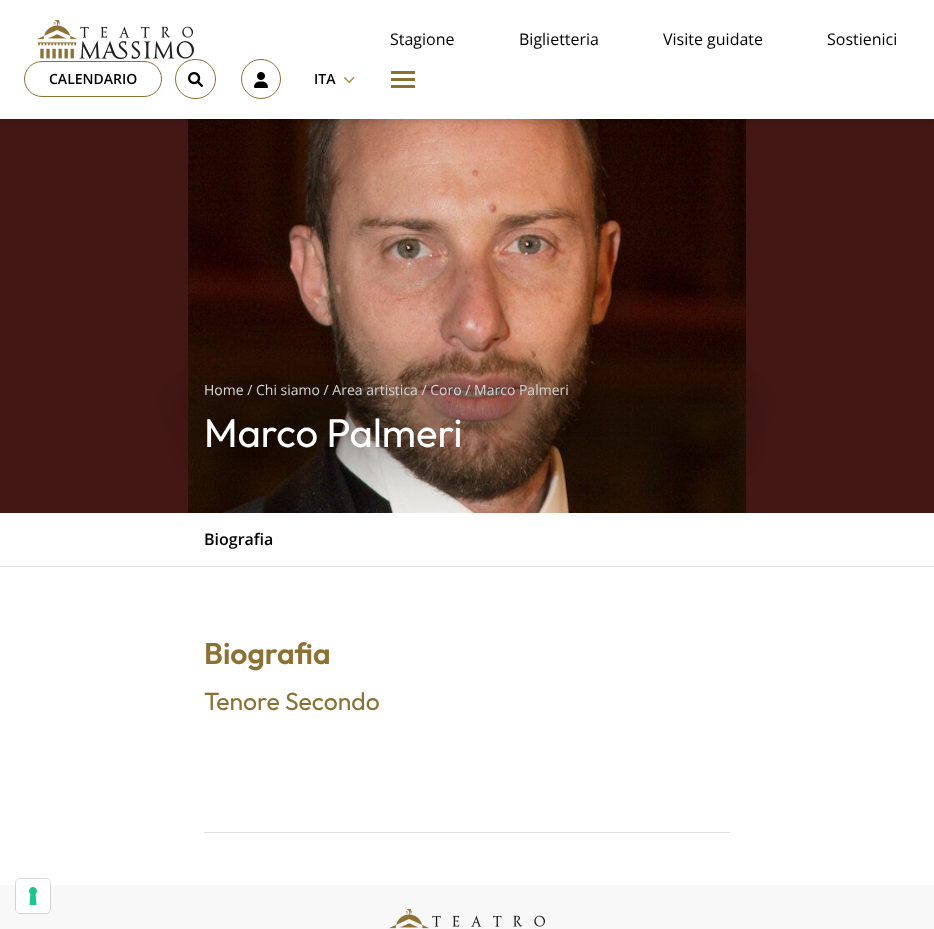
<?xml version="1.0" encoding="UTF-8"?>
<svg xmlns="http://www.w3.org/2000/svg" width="934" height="929">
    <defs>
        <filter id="blur1" x="-50%" y="-200%" width="200%" height="500%"><feGaussianBlur stdDeviation="2"/></filter>
        <filter id="blur2" x="-50%" y="-200%" width="200%" height="500%"><feGaussianBlur stdDeviation="30"/></filter>
    </defs>
    <rect width="100%" height="100%" fill="#FFFFFF"/>
    <image x="0" y="119" width="934" height="394" href="img_05.png"/>
    <rect x="0" y="4" width="934" height="119" fill="#000000" fill-opacity="0.1" filter="url(#blur1)"/>
    <rect x="0" y="1" width="934" height="118" fill="#FFFFFF"/>
    <image x="37" y="20" width="157" height="39" href="img_01.png"/>
    <text x="390" y="45" font-family="Open Sans" font-size="16" fill="#000000">Stagione</text>
    <text x="519" y="45" font-family="Open Sans" font-size="16" fill="#000000">Biglietteria</text>
    <text x="663" y="45" font-family="Open Sans" font-size="16" fill="#000000">Visite guidate</text>
    <text x="827" y="45" font-family="Open Sans" font-size="16" fill="#000000">Sostienici</text>
    <rect x="24.5" y="61.5" width="137" height="35" rx="17.5" fill="none" stroke="#8D7134"/>
    <text x="49" y="84" font-family="Open Sans" font-size="14" font-weight="600" fill="#000000">CALENDARIO</text>
    <rect x="175.5" y="59.5" width="40" height="39" rx="19.5" fill="none" stroke="#8D7134"/>
    <image x="188" y="72" width="15" height="15" href="img_02.png"/>
    <circle cx="261" cy="79" r="19.5" fill="none" stroke="#8D7134"/>
    <image x="254" y="72" width="14" height="16" href="img_03.png"/>
    <text x="314" y="84" font-family="Open Sans" font-size="14" font-weight="600" fill="#000000">ITA</text>
    <image x="344" y="77" width="11" height="6" href="img_04.png"/>
    <path d="M 391 72.5 H 415 M 391 79.5 H 415 M 391 86.5 H 415" fill="none" stroke="#8D7134" stroke-width="3"/>
    <rect x="204" y="380" width="526" height="19" fill="#000000" fill-opacity="0.5" filter="url(#blur2)"/>
    <text x="204" y="395" font-family="Open Sans" font-size="14" fill="#E6E6E6">Home / Chi siamo / Area artistica / Coro / Marco Palmeri</text>
    <rect x="204" y="415" width="526" height="35" fill="#000000" fill-opacity="0.5" filter="url(#blur2)"/>
    <text x="204" y="447" font-family="Outfit" font-size="40" fill="#FFFFFF">Marco Palmeri</text>
    <rect x="0" y="566" width="934" height="1" fill="#DFDFDF"/>
    <text x="204" y="545" font-family="Open Sans" font-size="16" font-weight="600" fill="#000000">Biografia</text>
    <text x="204" y="664" font-family="Outfit" font-size="30" font-weight="600" fill="#8D7134">Biografia</text>
    <rect x="204" y="832" width="526" height="1" fill="#DFDFDF"/>
    <text x="204" y="710" font-family="Outfit" font-size="24.75" fill="#8D7134">Tenore Secondo</text>
    <rect x="0" y="885" width="934" height="44" fill="#F8F8F8"/>
    <rect x="15.5" y="878.5" width="35" height="35" rx="4.5" fill="none" stroke="#000000" stroke-opacity="0.15"/>
    <rect x="16" y="879" width="34" height="34" rx="4" fill="#FFFFFF"/>
    <image x="29" y="887" width="8" height="18" href="img_06.png"/>
    <image x="389" y="909" width="157" height="20" href="img_07.png"/>
</svg>
